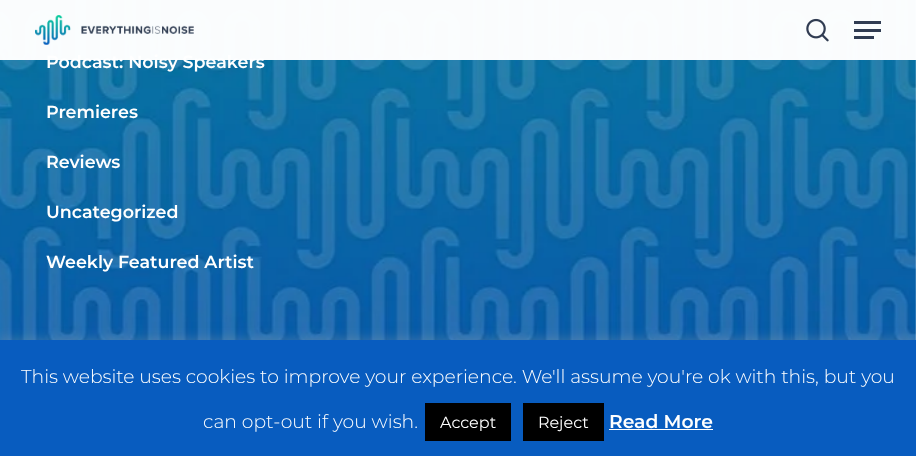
<?xml version="1.0" encoding="UTF-8"?>
<svg xmlns="http://www.w3.org/2000/svg" width="916" height="456">
    <defs>
        <filter id="blur1" x="-50%" y="-200%" width="200%" height="500%"><feGaussianBlur stdDeviation="6"/></filter>
    </defs>
    <rect width="100%" height="100%" fill="#FFFFFF"/>
    <image x="0" y="0" width="916" height="340" href="img_03.png"/>
    <text x="46" y="68" font-family="Montserrat" font-size="17.5" font-weight="600" fill="#FFFFFF">Podcast: Noisy Speakers</text>
    <rect x="0" y="0" width="916" height="60" fill="#FFFFFF" fill-opacity="0.98"/>
    <image x="35" y="15" width="159" height="30" href="img_01.png"/>
    <image x="806" y="18" width="23" height="24" href="img_02.png"/>
    <rect x="854" y="21" width="27" height="3" fill="#303C52"/>
    <rect x="854" y="36" width="20" height="3" fill="#303C52"/>
    <rect x="854" y="29" width="27" height="3" fill="#303C52"/>
    <text x="46" y="118" font-family="Montserrat" font-size="17.5" font-weight="600" fill="#FFFFFF">Premieres</text>
    <text x="46" y="168" font-family="Montserrat" font-size="17.5" font-weight="600" fill="#FFFFFF">Reviews</text>
    <text x="46" y="218" font-family="Montserrat" font-size="17.5" font-weight="600" fill="#FFFFFF">Uncategorized</text>
    <text x="46" y="268" font-family="Montserrat" font-size="17.5" font-weight="600" fill="#FFFFFF">Weekly Featured Artist</text>
    <rect x="0" y="339" width="916" height="116" fill="#ACABAB" fill-opacity="0.3" filter="url(#blur1)"/>
    <rect x="0" y="340" width="916" height="116" fill="#085CBF"/>
    <text x="21" y="383" font-family="Montserrat" font-size="18.75" font-weight="300" fill="#FFFFFF">This website uses cookies to improve your experience. We'll assume you're ok with this, but you</text>
    <text x="203" y="428" font-family="Montserrat" font-size="18.75" font-weight="300" fill="#FFFFFF">can opt-out if you wish.</text>
    <rect x="425" y="403" width="86" height="38" fill="#000000"/>
    <text x="440" y="428" font-family="Montserrat" font-size="16" fill="#FFFFFF">Accept</text>
    <rect x="523" y="403" width="81" height="38" fill="#000000"/>
    <text x="538" y="428" font-family="Montserrat" font-size="16" fill="#FFFFFF">Reject</text>
    <text x="609" y="428" font-family="Montserrat" font-size="18.75" font-weight="600" fill="#FFFFFF">Read More</text>
    <rect x="609" y="429" width="104" height="1" fill="#FFFFFF"/>
</svg>
